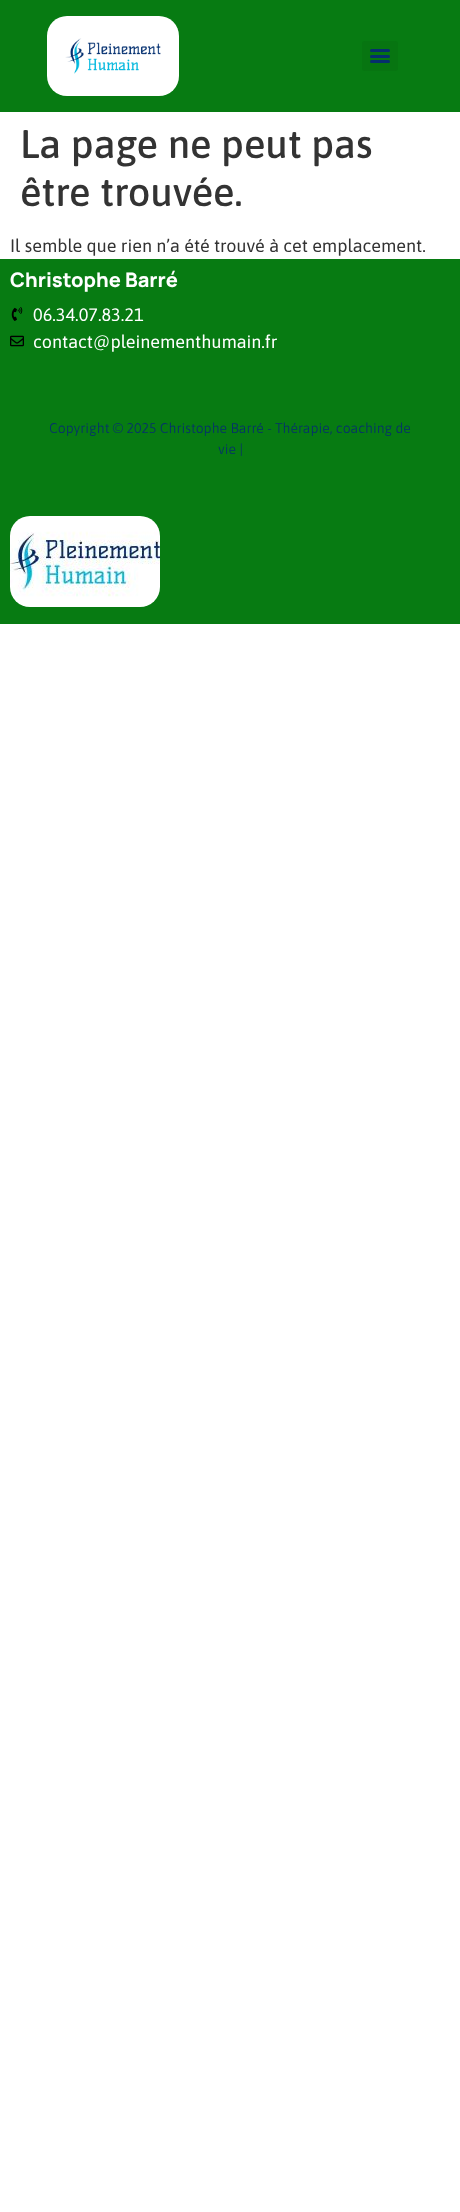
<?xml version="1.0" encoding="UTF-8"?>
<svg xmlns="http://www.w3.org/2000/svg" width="460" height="2212">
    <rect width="100%" height="100%" fill="#FFFFFF"/>
    <rect x="0" y="0" width="460" height="112" fill="#077B12"/>
    <image x="47" y="16" width="132" height="80" href="img_01.png"/>
    <rect x="362" y="41" width="36" height="30" rx="3" fill="#077511"/>
    <rect x="370" y="55" width="20" height="3" rx="1.5" fill="#062F6E"/>
    <rect x="370" y="49" width="20" height="3" rx="1.5" fill="#062F6E"/>
    <rect x="370" y="60" width="20" height="3" rx="1.5" fill="#062F6E"/>
    <text font-family="Asap" font-size="40" font-weight="500" fill="#333333">
        <tspan x="20" y="158">La page ne peut pas</tspan>
        <tspan x="20" y="206">être trouvée.</tspan>
    </text>
    <text x="10" y="252" font-family="Asap" font-size="18" fill="#333333">Il semble que rien n’a été trouvé à cet emplacement.</text>
    <rect x="0" y="259" width="460" height="365" fill="#077B12"/>
    <text x="10" y="287" font-family="Manrope" font-size="20" font-weight="800" fill="#FFFFFF">Christophe Barré</text>
    <image x="11" y="307" width="12" height="14" href="img_02.png"/>
    <text x="33" y="321" font-family="Asap" font-size="18" fill="#FFFFFF">06.34.07.83.21</text>
    <image x="10" y="335" width="14" height="12" href="img_03.png"/>
    <text x="33" y="348" font-family="Asap" font-size="18" fill="#FFFFFF">contact@pleinementhumain.fr</text>
    <text x="49" y="433" font-family="Asap" font-size="14" font-weight="300" fill="#062F6E">Copyright © 2025 Christophe Barré - Thérapie, coaching de</text>
    <text x="218" y="454" font-family="Asap" font-size="14" font-weight="300" fill="#062F6E">vie |</text>
    <image x="10" y="516" width="150" height="91" href="img_04.png"/>
</svg>
